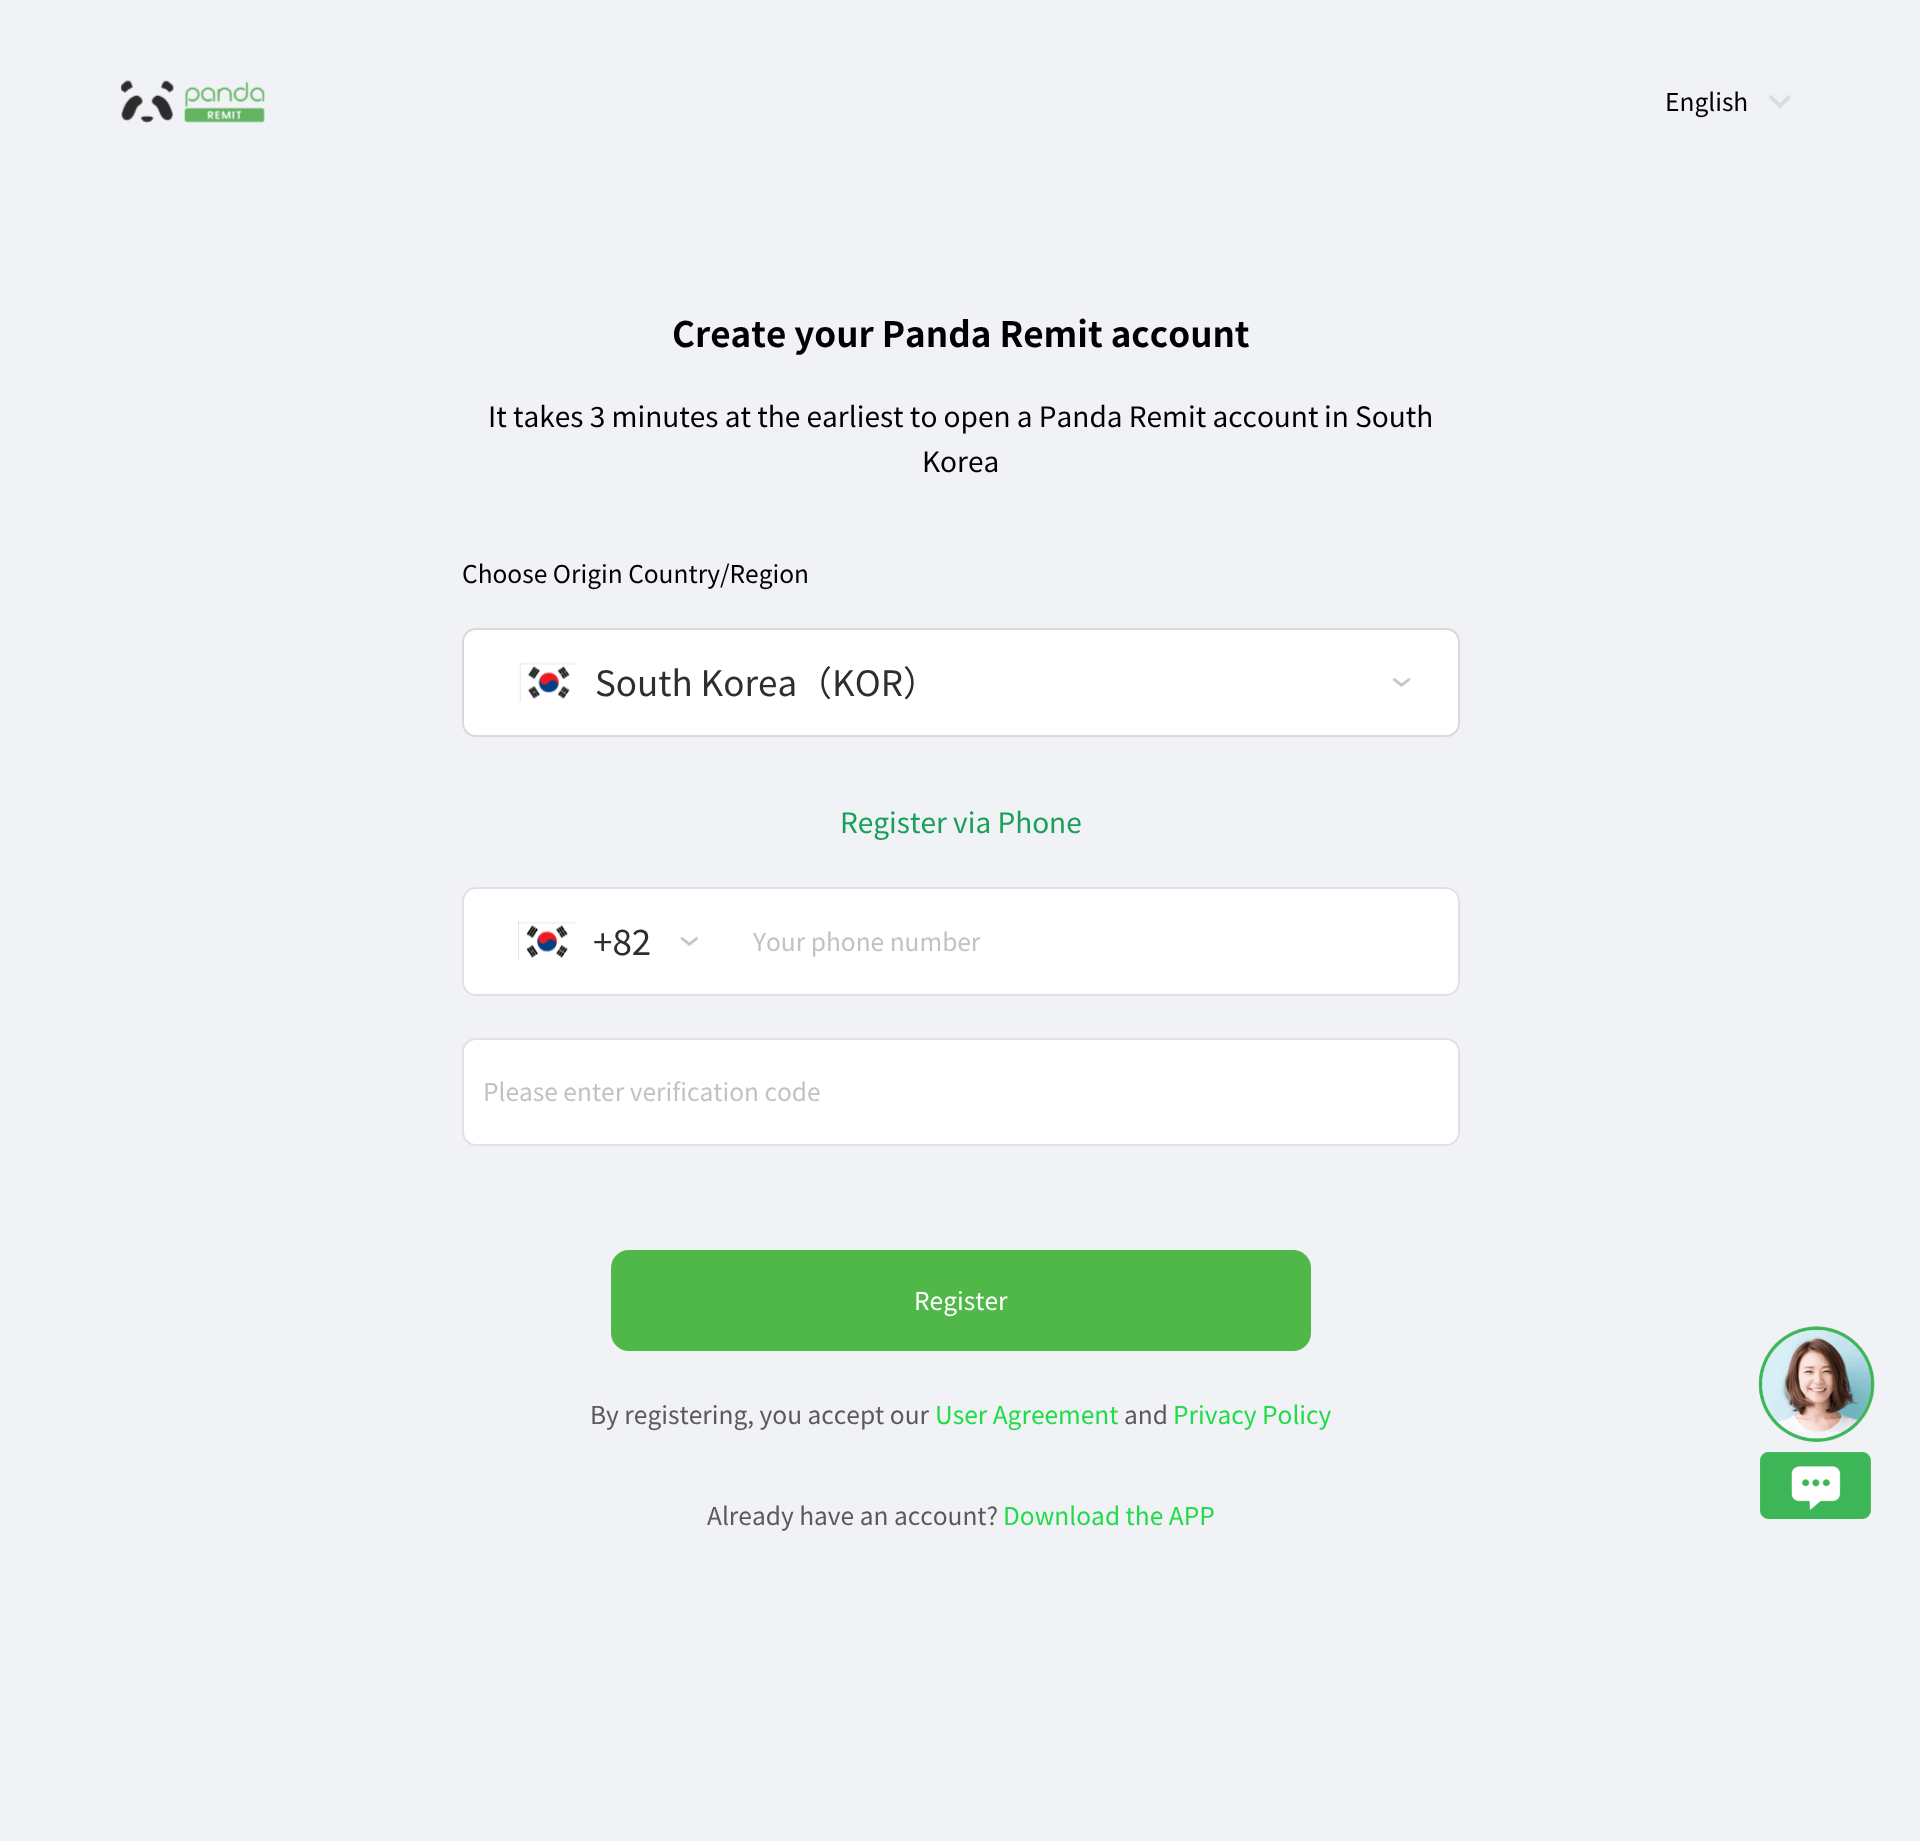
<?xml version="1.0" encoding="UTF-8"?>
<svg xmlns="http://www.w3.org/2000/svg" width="1920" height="1841">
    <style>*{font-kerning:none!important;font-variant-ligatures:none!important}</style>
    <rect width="100%" height="100%" fill="#F0F2F5"/>
    <image x="121" y="80" width="144" height="43" href="img_01.png"/>
    <text x="1665" y="111" font-family="Noto Sans CJK SC" font-size="24.5" fill="#000000">English</text>
    <image x="1768" y="95" width="23" height="14" href="img_02.png"/>
    <text x="672" y="347" font-family="Noto Sans CJK SC" font-size="35" font-weight="700" fill="#000000">Create your Panda Remit account</text>
    <text x="488" y="427" font-family="Noto Sans CJK SC" font-size="28" fill="#000000">It takes 3 minutes at the earliest to open a Panda Remit account</text>
    <text x="1324" y="427" font-family="Noto Sans CJK SC" font-size="28" fill="#000000">in South</text>
    <text x="922" y="472" font-family="Noto Sans CJK SC" font-size="28" fill="#000000">Korea</text>
    <text x="462" y="583" font-family="Noto Sans CJK SC" font-size="24.5" fill="#000000">Choose Origin Country/Region</text>
    <rect x="463" y="629" width="996" height="107" rx="13" fill="#FFFFFF" stroke="#D9D9D9" stroke-width="2"/>
    <image x="519" y="662" width="59" height="40" href="img_03.png"/>
    <text x="595" y="696" font-family="Noto Sans CJK SC" font-size="35" fill="#2E2E2E">South Korea（KOR）</text>
    <image x="1392" y="677" width="19" height="11" href="img_04.png"/>
    <text x="840" y="833" font-family="Noto Sans CJK SC" font-size="28" fill="#18A058">Register via Phone</text>
    <rect x="462" y="887" width="998" height="109" rx="14" fill="#FFFFFF"/>
    <image x="518" y="921" width="58" height="40" href="img_05.png"/>
    <image x="680" y="936" width="18" height="11" href="img_06.png"/>
    <rect x="463" y="888" width="996" height="107" rx="13" fill="none" stroke="#E0E0E6" stroke-width="2"/>
    <text x="593" y="955" font-family="Noto Sans CJK SC" font-size="35" fill="#2E2E2E">+82</text>
    <text x="753" y="951" font-family="Noto Sans CJK SC" font-size="24.5" fill="#C2C2C2">Your phone number</text>
    <rect x="462" y="1038" width="998" height="108" rx="14" fill="#FFFFFF"/>
    <rect x="463" y="1039" width="996" height="106" rx="13" fill="none" stroke="#E0E0E6" stroke-width="2"/>
    <text x="483" y="1101" font-family="Noto Sans CJK SC" font-size="24.5" fill="#C2C2C2">Please enter verification code</text>
    <rect x="611" y="1250" width="700" height="101" rx="18" fill="#50B848"/>
    <text x="914" y="1310" font-family="Noto Sans CJK SC" font-size="24.5" fill="#FFFFFF">Register</text>
    <text x="590" y="1424" font-family="Noto Sans CJK SC" font-size="24.5" fill="#5A5A5A">By registering, you accept our</text>
    <text x="935" y="1424" font-family="Noto Sans CJK SC" font-size="24.5" fill="#20DC49">User Agreement</text>
    <text x="1124" y="1424" font-family="Noto Sans CJK SC" font-size="24.5" fill="#5A5A5A">and</text>
    <text x="1173" y="1424" font-family="Noto Sans CJK SC" font-size="24.5" fill="#20DC49">Privacy Policy</text>
    <text x="707" y="1525" font-family="Noto Sans CJK SC" font-size="24.5" fill="#5A5A5A">Already have an account?</text>
    <text x="1003" y="1525" font-family="Noto Sans CJK SC" font-size="24.5" fill="#20DC49">Download the APP</text>
    <image x="1758" y="1326" width="117" height="193" href="img_07.png"/>
</svg>
